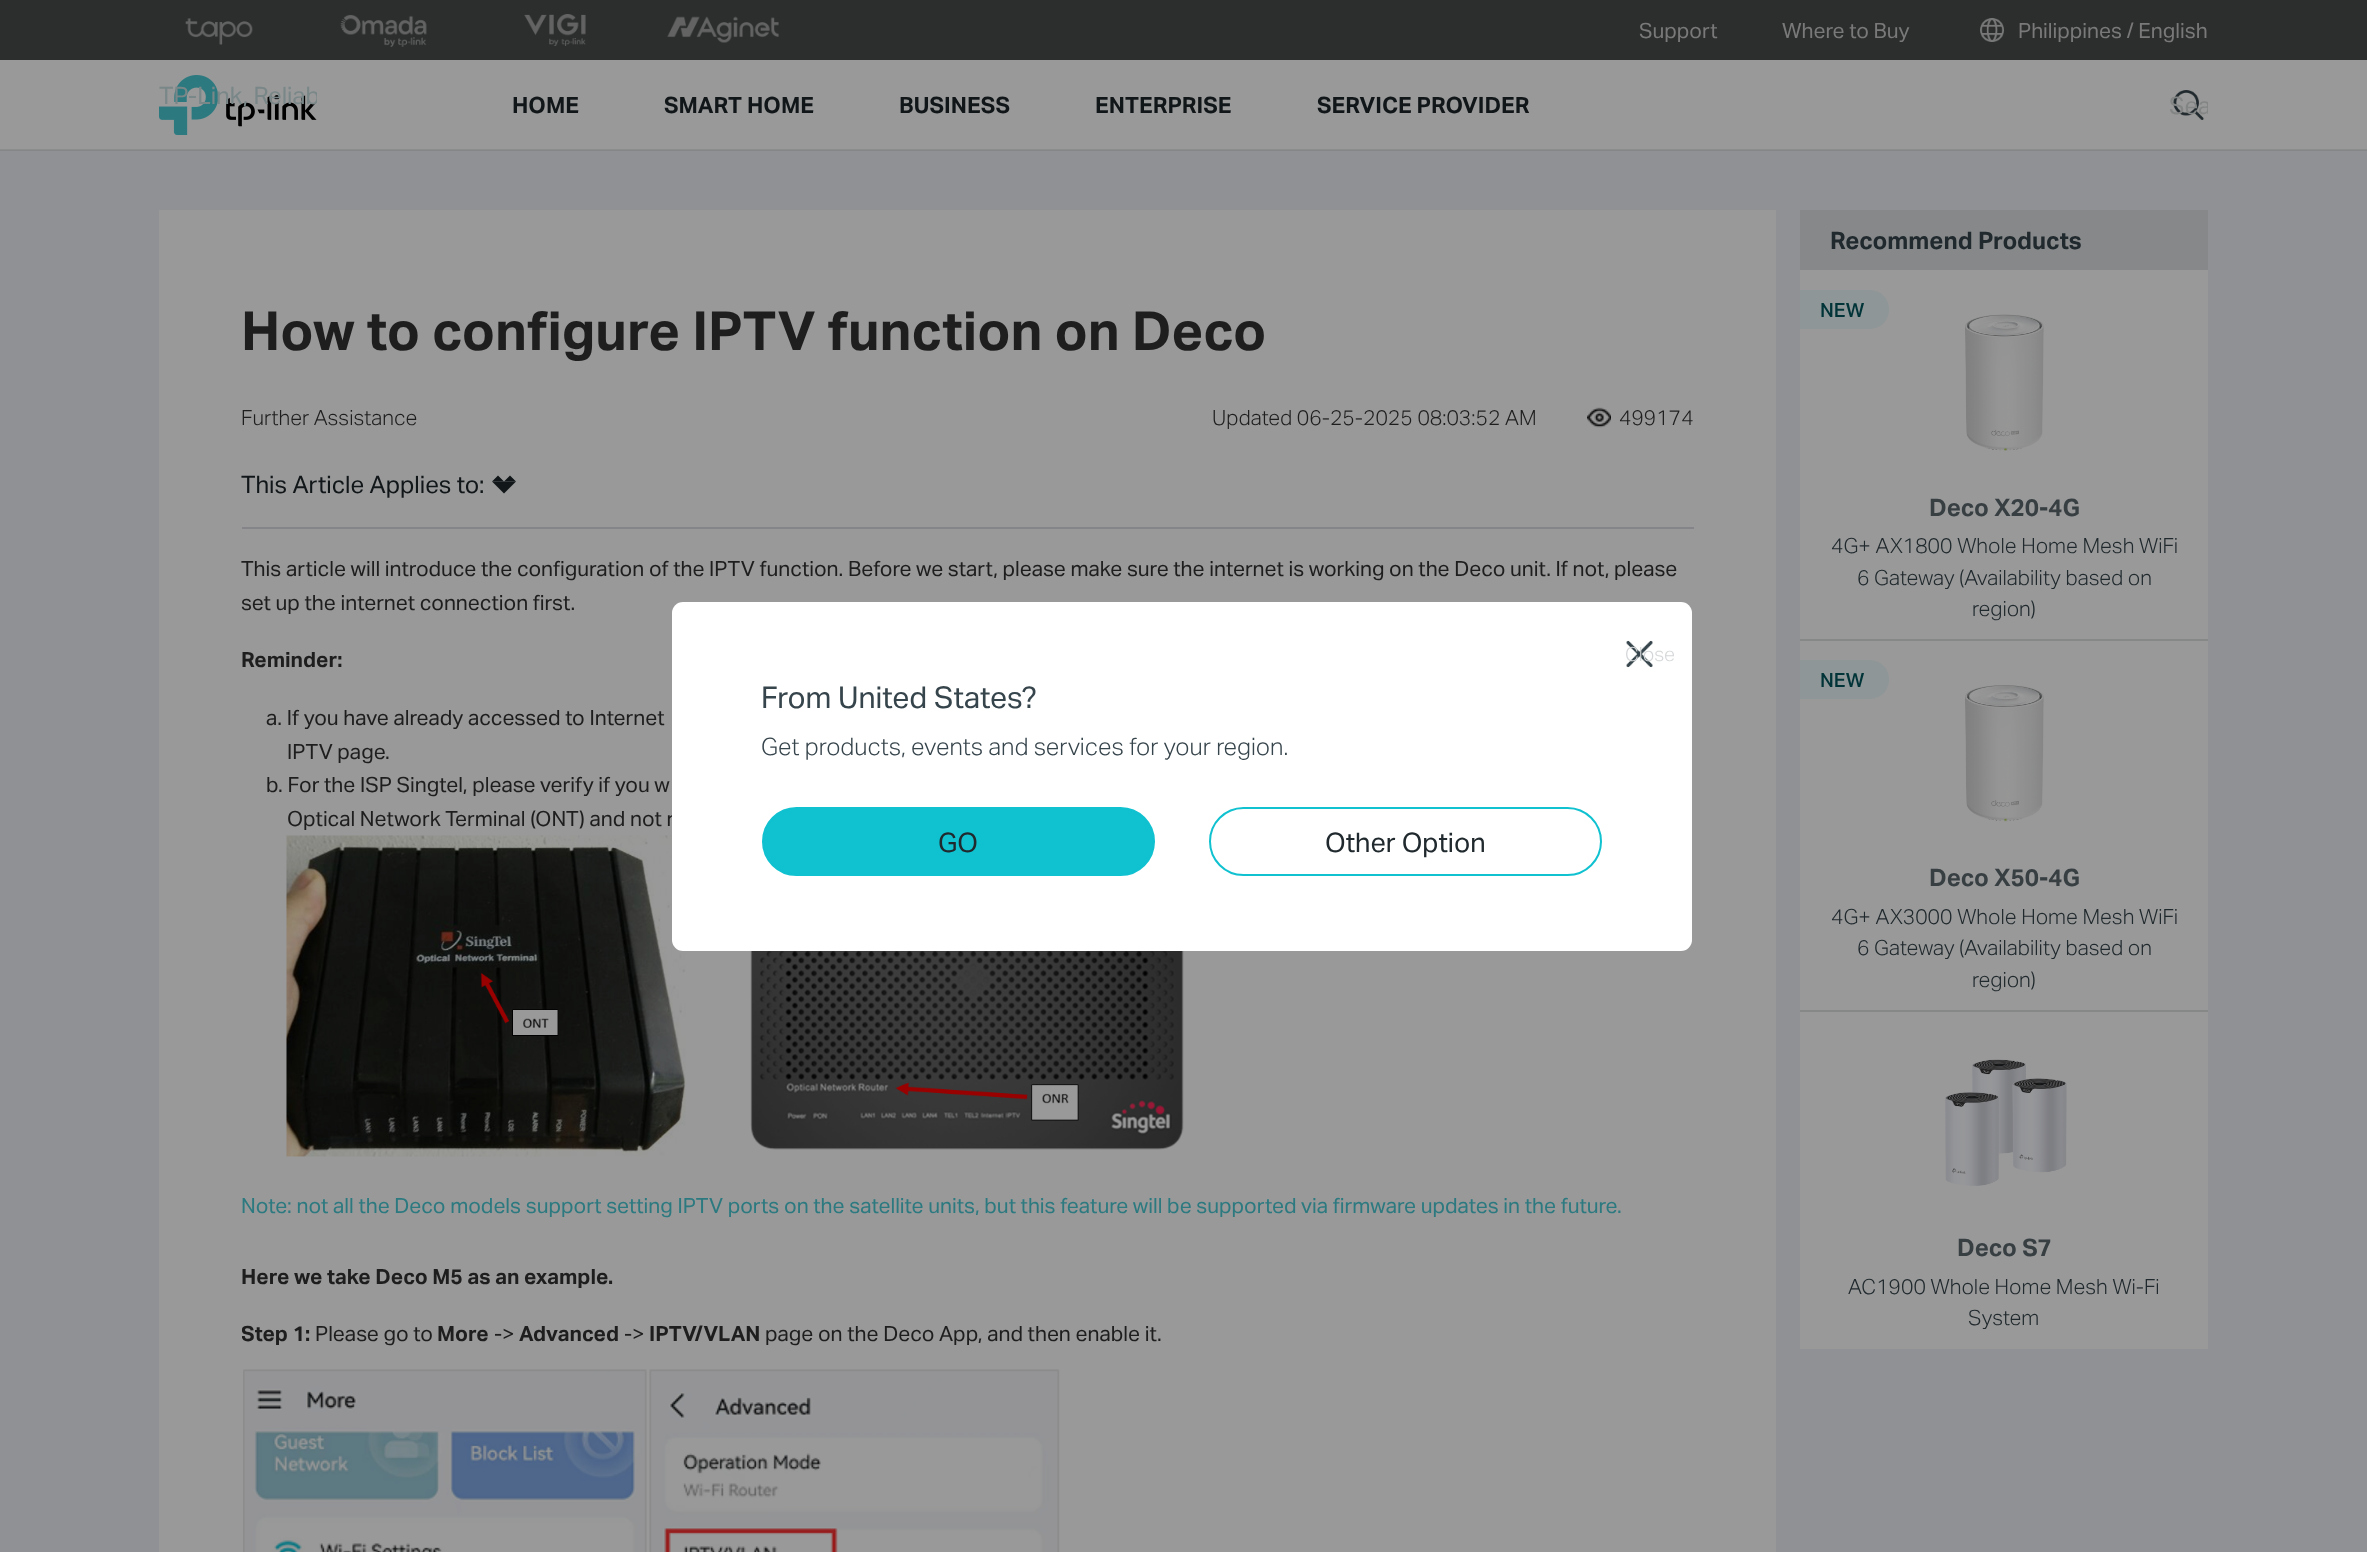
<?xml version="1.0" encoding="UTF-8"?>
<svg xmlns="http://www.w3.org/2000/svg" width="2367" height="1552">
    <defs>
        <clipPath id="clip1"><rect x="159" y="75" width="158" height="60"/></clipPath>
        <clipPath id="clip2"><rect x="2169" y="86" width="39" height="39"/></clipPath>
        <clipPath id="clip3"><rect x="242" y="552" width="1452" height="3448"/></clipPath>
    </defs>
    <rect width="100%" height="100%" fill="#999999"/>
    <rect x="0" y="149" width="2367" height="1" fill="#8B8C8C"/>
    <rect x="0" y="0" width="2367" height="60" fill="#2C2D2D"/>
    <image x="185" y="18" width="68" height="27" href="img_01.png"/>
    <image x="340" y="14" width="87" height="33" href="img_02.png"/>
    <image x="524" y="14" width="62" height="32" href="img_03.png"/>
    <image x="667" y="16" width="112" height="27" href="img_04.png"/>
    <text x="1639" y="38" font-family="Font" font-size="21" fill="#797979">Support</text>
    <text x="1782" y="38" font-family="Font" font-size="21" fill="#797979">Where to Buy</text>
    <image x="1980" y="18" width="24" height="24" href="img_05.png"/>
    <text x="2018" y="38" font-family="Font" font-size="21" fill="#797979">Philippines / English</text>
    <image x="159" y="75" width="158" height="60" href="img_06.png"/>
    <g clip-path="url(#clip1)">
        <text x="159" y="104" font-family="Font" font-size="24" fill="#7A8788">TP-Link, Reliab</text>
    </g>
    <text x="512" y="113" font-family="Font" font-size="22.5" font-weight="700" fill="#111619">HOME</text>
    <text x="664" y="113" font-family="Font" font-size="22.5" font-weight="700" fill="#111619">SMART HOME</text>
    <text x="899" y="113" font-family="Font" font-size="22.5" font-weight="700" fill="#111619">BUSINESS</text>
    <text x="1095" y="113" font-family="Font" font-size="22.5" font-weight="700" fill="#111619">ENTERPRISE</text>
    <text x="1317" y="113" font-family="Font" font-size="22.5" font-weight="700" fill="#111619">SERVICE PROVIDER</text>
    <image x="2173" y="90" width="31" height="30" href="img_07.png"/>
    <g clip-path="url(#clip2)">
        <text x="2169" y="114" font-family="Font" font-size="24" fill="#838585">Sea</text>
    </g>
    <rect x="0" y="151" width="2367" height="1401" fill="#909195"/>
    <rect x="0" y="150" width="2367" height="1" fill="#848689"/>
    <rect x="159" y="210" width="1617" height="1342" fill="#999999"/>
    <text x="241" y="350" font-family="Font" font-size="54" font-weight="700" fill="#1E1E1E">How to configure IPTV function on Deco</text>
    <text x="241" y="425" font-family="Font" font-size="21" font-weight="300" fill="#1E1E1E">Further Assistance</text>
    <text x="1212" y="425" font-family="Font" font-size="21" font-weight="300" fill="#1E1E1E">Updated 06-25-2025 08:03:52 AM</text>
    <image x="1587" y="407" width="24" height="21" href="img_08.png"/>
    <text x="1619" y="425" font-family="Font" font-size="21" font-weight="300" fill="#1E1E1E">499174</text>
    <rect x="242" y="527" width="1452" height="2" fill="#848589"/>
    <text x="241" y="493" font-family="Font" font-size="24" fill="#111619">This Article Applies to:</text>
    <path d="M 492 481.5 H 516 L 504 493.5 Z" fill="#111619"/>
    <path d="M 504 481.5 H 492 L 498 475.5 Z M 516 481.5 H 504 L 510 475.5 Z" fill="#111619"/>
    <text font-family="Font" font-size="21" fill="#1E1E1E">
        <tspan x="241" y="576">This article will introduce the configuration of the IPTV function. Before we start, please make sure the internet is working on the Deco unit. If not, please</tspan>
        <tspan x="241" y="610">set up the internet connection first.</tspan>
    </text>
    <text x="241" y="667" font-family="Font" font-size="21" font-weight="700" fill="#1E1E1E">Reminder:</text>
    <text x="266" y="725" font-family="Font" font-size="21" fill="#1E1E1E">a. If you have already accessed to Internet</text>
    <text x="287" y="759" font-family="Font" font-size="21" fill="#1E1E1E">IPTV page.</text>
    <text x="266" y="792" font-family="Font" font-size="21" fill="#1E1E1E">b. For the ISP Singtel, please verify if you w</text>
    <text x="287" y="826" font-family="Font" font-size="21" fill="#1E1E1E">Optical Network Terminal (ONT) and not r</text>
    <image x="286" y="835" width="898" height="322" href="img_09.png"/>
    <text x="241" y="1213" font-family="Font" font-size="21" fill="#2C7A80">Note: not all the Deco models support setting IPTV ports on the satellite units, but this feature will be supported via firmware updates in the future.</text>
    <text x="241" y="1284" font-family="Font" font-size="21" font-weight="700" fill="#1E1E1E">Here we take Deco M5 as an example.</text>
    <g clip-path="url(#clip3)">
        <text x="241" y="1341" font-family="Font" font-size="21" font-weight="700" fill="#1E1E1E">Step 1:</text>
    </g>
    <text x="315" y="1341" font-family="Font" font-size="21" fill="#1E1E1E">Please go to</text>
    <text x="437" y="1341" font-family="Font" font-size="21" font-weight="700" fill="#1E1E1E">More</text>
    <text x="494" y="1341" font-family="Font" font-size="21" fill="#1E1E1E">-&gt;</text>
    <text x="519" y="1341" font-family="Font" font-size="21" font-weight="700" fill="#1E1E1E">Advanced</text>
    <text x="624" y="1341" font-family="Font" font-size="21" fill="#1E1E1E">-&gt;</text>
    <text x="649" y="1341" font-family="Font" font-size="21" font-weight="700" fill="#1E1E1E">IPTV/VLAN</text>
    <text x="765" y="1341" font-family="Font" font-size="21" fill="#1E1E1E">page on the Deco App, and then enable it.</text>
    <image x="243" y="1369" width="404" height="183" href="img_10.png"/>
    <image x="649" y="1369" width="411" height="183" href="img_11.png"/>
    <rect x="1800" y="210" width="408" height="60" fill="#868889"/>
    <text x="1830" y="249" font-family="Font" font-size="24" font-weight="700" fill="#20292D">Recommend Products</text>
    <rect x="1800" y="270" width="408" height="1079" fill="#999999"/>
    <path d="M 1800 290 H 1869.5 C 1880.5 290 1889 298.5 1889 309.5 C 1889 320.5 1880.5 329 1869.5 329 H 1800 Z" fill="#8E9697"/>
    <text x="1820" y="317" font-family="Font" font-size="19.5" font-weight="500" fill="#003438">NEW</text>
    <image x="1965" y="314" width="79" height="137" href="img_12.png"/>
    <text x="1929" y="516" font-family="Font" font-size="24" font-weight="700" fill="#383F43">Deco X20-4G</text>
    <text x="1831" y="553" font-family="Font" font-size="21" font-weight="300" fill="#20292D">4G+ AX1800 Whole Home Mesh WiFi</text>
    <text x="1857" y="585" font-family="Font" font-size="21" font-weight="300" fill="#20292D">6 Gateway (Availability based on</text>
    <text x="1972" y="616" font-family="Font" font-size="21" font-weight="300" fill="#20292D">region)</text>
    <rect x="1800" y="639" width="408" height="2" fill="#868888"/>
    <path d="M 1800 660 H 1869.5 C 1880.5 660 1889 668.5 1889 679.5 C 1889 690.5 1880.5 699 1869.5 699 H 1800 Z" fill="#8E9697"/>
    <text x="1820" y="687" font-family="Font" font-size="19.5" font-weight="500" fill="#003438">NEW</text>
    <image x="1965" y="685" width="79" height="137" href="img_13.png"/>
    <text x="1929" y="886" font-family="Font" font-size="24" font-weight="700" fill="#383F43">Deco X50-4G</text>
    <text x="1831" y="924" font-family="Font" font-size="21" font-weight="300" fill="#20292D">4G+ AX3000 Whole Home Mesh WiFi</text>
    <text x="1857" y="955" font-family="Font" font-size="21" font-weight="300" fill="#20292D">6 Gateway (Availability based on</text>
    <text x="1972" y="987" font-family="Font" font-size="21" font-weight="300" fill="#20292D">region)</text>
    <rect x="1800" y="1010" width="408" height="2" fill="#868888"/>
    <image x="1945" y="1059" width="122" height="127" href="img_14.png"/>
    <text x="1957" y="1256" font-family="Font" font-size="24" font-weight="700" fill="#383F43">Deco S7</text>
    <text x="1848" y="1294" font-family="Font" font-size="21" font-weight="300" fill="#20292D">AC1900 Whole Home Mesh Wi-Fi</text>
    <text x="1968" y="1325" font-family="Font" font-size="21" font-weight="300" fill="#20292D">System</text>
    <rect x="672" y="602" width="1020" height="349" rx="11" fill="#FFFFFF"/>
    <image x="1626" y="640" width="27" height="28" href="img_15.png"/>
    <text x="1625" y="661" font-family="Font" font-size="19.5" font-weight="300" fill="#D4D7D9">Close</text>
    <text x="761" y="708" font-family="Font" font-size="30" fill="#36444B">From United States?</text>
    <text x="761" y="755" font-family="Font" font-size="24" font-weight="300" fill="#36444B">Get products, events and services for your region.</text>
    <rect x="763" y="808" width="391" height="67" rx="33.5" fill="#10C1D0" stroke="#10C1D0" stroke-width="2"/>
    <text x="938" y="852" font-family="Font" font-size="27" fill="#20292D">GO</text>
    <rect x="1210" y="808" width="391" height="67" rx="33.5" fill="none" stroke="#10C1D0" stroke-width="2"/>
    <text x="1325" y="852" font-family="Font" font-size="27" fill="#20292D">Other Option</text>
</svg>
